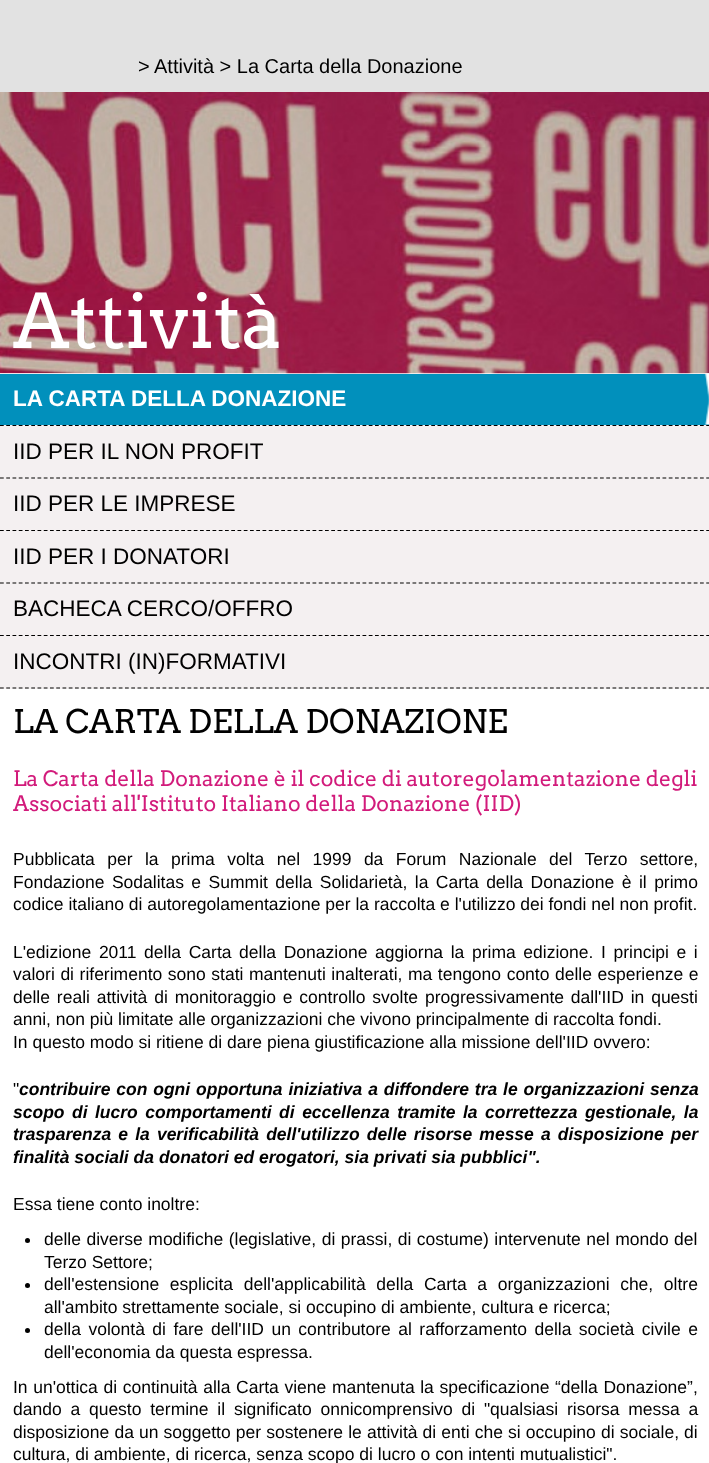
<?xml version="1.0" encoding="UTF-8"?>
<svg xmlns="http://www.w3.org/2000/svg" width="709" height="1463">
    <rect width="100%" height="100%" fill="#FFFFFF"/>
    <rect x="0" y="0" width="709" height="92" fill="#E2E2E2"/>
    <text x="138" y="73" font-family="Liberation Sans" font-size="20" fill="#000000">&gt;</text>
    <text x="154" y="73" font-family="Liberation Sans" font-size="20" fill="#000000">Attività &gt; La Carta della Donazione</text>
    <text x="13" y="733" font-family="Arvo" font-size="32.5" fill="#000000">LA CARTA DELLA DONAZIONE</text>
    <text font-family="Arvo" font-size="21.25" fill="#D21B7B">
        <tspan x="13" y="786">La Carta della Donazione è il codice di autoregolamentazione degli</tspan>
        <tspan x="13" y="811">Associati all'Istituto Italiano della Donazione (IID)</tspan>
    </text>
    <text font-family="Liberation Sans" font-size="17.5" fill="#000000">
        <tspan x="13" y="865" word-spacing="7.6">Pubblicata per la prima volta nel 1999 da Forum Nazionale del Terzo settore,</tspan>
        <tspan x="13" y="888" word-spacing="2.6">Fondazione Sodalitas e Summit della Solidarietà, la Carta della Donazione è il primo</tspan>
        <tspan x="13" y="910">codice italiano di autoregolamentazione per la raccolta e l'utilizzo dei fondi nel non profit.</tspan>
    </text>
    <text font-family="Liberation Sans" font-size="17.5" fill="#000000">
        <tspan x="13" y="958" word-spacing="2.75">L'edizione 2011 della Carta della Donazione aggiorna la prima edizione. I principi e i</tspan>
        <tspan x="13" y="980" word-spacing="0.7">valori di riferimento sono stati mantenuti inalterati, ma tengono conto delle esperienze e</tspan>
        <tspan x="13" y="1003" word-spacing="2">delle reali attività di monitoraggio e controllo svolte progressivamente dall'IID in questi</tspan>
        <tspan x="13" y="1025">anni, non più limitate alle organizzazioni che vivono principalmente di raccolta fondi.</tspan>
        <tspan x="13" y="1048">In questo modo si ritiene di dare piena giustificazione alla missione dell'IID ovvero:</tspan>
    </text>
    <text x="13" y="1095" font-family="Liberation Sans" font-size="17.5" fill="#000000">"</text>
    <text x="19" y="1095" word-spacing="1" font-family="Liberation Sans" font-size="17.5" font-weight="700" font-style="italic" fill="#000000">contribuire con ogni opportuna iniziativa a diffondere tra le organizzazioni senza</text>
    <text font-family="Liberation Sans" font-size="17.5" font-weight="700" font-style="italic" fill="#000000">
        <tspan x="13" y="1118" word-spacing="2.6">scopo di lucro comportamenti di eccellenza tramite la correttezza gestionale, la</tspan>
        <tspan x="13" y="1140" word-spacing="2.25">trasparenza e la verificabilità dell'utilizzo delle risorse messe a disposizione per</tspan>
        <tspan x="13" y="1163">finalità sociali da donatori ed erogatori, sia privati sia pubblici".</tspan>
    </text>
    <text x="13" y="1210" font-family="Liberation Sans" font-size="17.5" fill="#000000">Essa tiene conto inoltre:</text>
    <circle cx="27.5" cy="1240.5" r="2.5" fill="#000000"/>
    <text font-family="Liberation Sans" font-size="17.5" fill="#000000">
        <tspan x="44" y="1245" word-spacing="0.6">delle diverse modifiche (legislative, di prassi, di costume) intervenute nel mondo del</tspan>
        <tspan x="44" y="1268">Terzo Settore;</tspan>
    </text>
    <circle cx="27.5" cy="1285.5" r="2.5" fill="#000000"/>
    <text font-family="Liberation Sans" font-size="17.5" fill="#000000">
        <tspan x="44" y="1290" word-spacing="5.75">dell'estensione esplicita dell'applicabilità della Carta a organizzazioni che, oltre</tspan>
        <tspan x="44" y="1313">all'ambito strettamente sociale, si occupino di ambiente, cultura e ricerca;</tspan>
    </text>
    <circle cx="27.5" cy="1330.5" r="2.5" fill="#000000"/>
    <text font-family="Liberation Sans" font-size="17.5" fill="#000000">
        <tspan x="44" y="1335" word-spacing="2.6">della volontà di fare dell'IID un contributore al rafforzamento della società civile e</tspan>
        <tspan x="44" y="1358">dell'economia da questa espressa.</tspan>
    </text>
    <text font-family="Liberation Sans" font-size="17.5" fill="#000000">
        <tspan x="13" y="1393" word-spacing="0.75">In un'ottica di continuità alla Carta viene mantenuta la specificazione “della Donazione”,</tspan>
        <tspan x="13" y="1415" word-spacing="3.9">dando a questo termine il significato onnicomprensivo di "qualsiasi risorsa messa a</tspan>
        <tspan x="13" y="1438" word-spacing="0.25">disposizione da un soggetto per sostenere le attività di enti che si occupino di sociale, di</tspan>
        <tspan x="13" y="1460">cultura, di ambiente, di ricerca, senza scopo di lucro o con intenti mutualistici".</tspan>
    </text>
    <rect x="0" y="425" width="709" height="264" fill="#F4F0F1"/>
    <image x="0" y="92" width="709" height="282" href="img_03.png"/>
    <image x="0" y="373" width="253" height="1" href="img_01.png"/>
    <rect x="0" y="374" width="709" height="51" fill="#0190BC"/>
    <image x="704" y="373" width="5" height="52" href="img_02.png"/>
    <text x="13" y="406" font-family="Liberation Sans" font-size="22.5" font-weight="700" fill="#FFFFFF">LA CARTA DELLA DONAZIONE</text>
    <path d="M 0 425.5 H 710" fill="none" stroke="#000000" stroke-width="1.2" stroke-dasharray="3.75 2.5"/>
    <text x="13" y="459" font-family="Liberation Sans" font-size="22.5" fill="#000000">IID PER IL NON PROFIT</text>
    <path d="M 0 478 H 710" fill="none" stroke="#000000" stroke-width="1.2" stroke-dasharray="3.75 2.5"/>
    <text x="13" y="511" font-family="Liberation Sans" font-size="22.5" fill="#000000">IID PER LE IMPRESE</text>
    <path d="M 0 530.5 H 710" fill="none" stroke="#000000" stroke-width="1.2" stroke-dasharray="3.75 2.5"/>
    <text x="13" y="564" font-family="Liberation Sans" font-size="22.5" fill="#000000">IID PER I DONATORI</text>
    <path d="M 0 583 H 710" fill="none" stroke="#000000" stroke-width="1.2" stroke-dasharray="3.75 2.5"/>
    <text x="13" y="616" font-family="Liberation Sans" font-size="22.5" fill="#000000">BACHECA CERCO/OFFRO</text>
    <path d="M 0 635.5 H 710" fill="none" stroke="#000000" stroke-width="1.2" stroke-dasharray="3.75 2.5"/>
    <path d="M 0 688 H 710" fill="none" stroke="#000000" stroke-width="1.2" stroke-dasharray="3.75 2.5"/>
    <text x="13" y="669" font-family="Liberation Sans" font-size="22.5" fill="#000000">INCONTRI (IN)FORMATIVI</text>
    <text x="13" y="348" font-family="Arvo" font-size="75" fill="#FFFFFF">Attività</text>
</svg>
